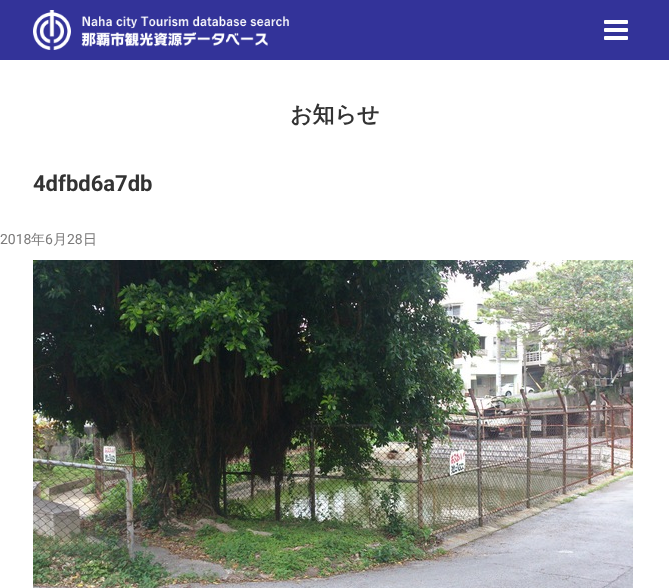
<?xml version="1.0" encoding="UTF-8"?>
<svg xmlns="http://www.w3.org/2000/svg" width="669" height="588">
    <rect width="100%" height="100%" fill="#FFFFFF"/>
    <rect x="0" y="0" width="669" height="60" fill="#333399"/>
    <image x="33" y="10" width="256" height="40" href="img_01.png"/>
    <image x="604" y="20" width="24" height="20" href="img_02.png"/>
    <text x="290" y="122" font-family="WenQuanYi Zen Hei" font-size="22" font-weight="700" fill="#333333">お知らせ</text>
    <text x="33" y="191" font-family="Roboto" font-size="22" font-weight="700" fill="#333333">4dfbd6a7db</text>
    <text x="0" y="244" font-family="Roboto" font-size="14" fill="#7B7A7A">2018</text>
    <text x="31" y="244" font-family="WenQuanYi Zen Hei" font-size="14" font-weight="500" fill="#7B7A7A">年</text>
    <text x="45" y="244" font-family="Roboto" font-size="14" fill="#7B7A7A">6</text>
    <text x="53" y="244" font-family="WenQuanYi Zen Hei" font-size="14" font-weight="500" fill="#7B7A7A">月</text>
    <text x="67" y="244" font-family="Roboto" font-size="14" fill="#7B7A7A">28</text>
    <text x="83" y="244" font-family="WenQuanYi Zen Hei" font-size="14" font-weight="500" fill="#7B7A7A">日</text>
    <image x="33" y="260" width="600" height="328" href="img_03.png"/>
</svg>
